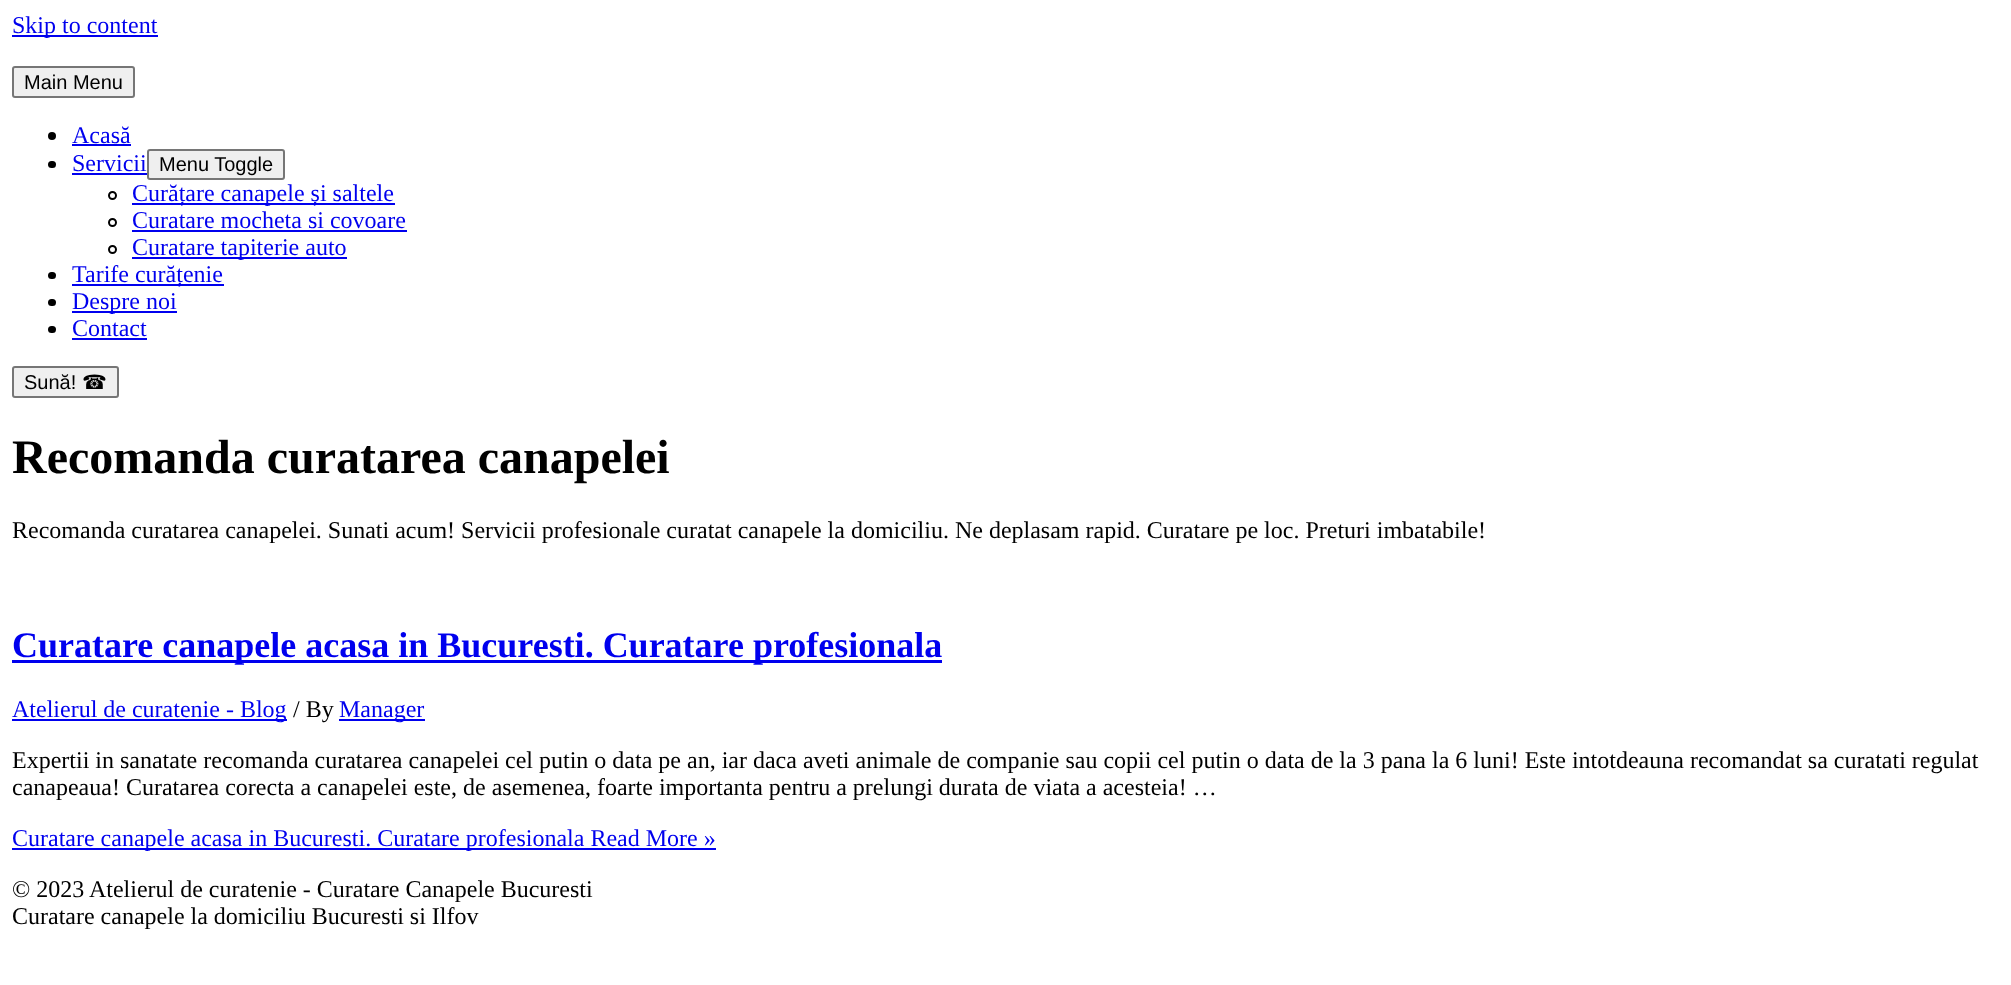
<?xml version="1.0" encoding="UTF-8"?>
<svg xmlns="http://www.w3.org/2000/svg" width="2011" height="985">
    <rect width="100%" height="100%" fill="#FFFFFF"/>
    <rect x="12" y="35" width="146" height="2" fill="#0000EE"/>
    <text x="12" y="33" font-family="Liberation Serif" font-size="24" fill="#0000EE">Skip to content</text>
    <rect x="13" y="67" width="121" height="30" rx="2" fill="#EFEFEF" stroke="#767676" stroke-width="2"/>
    <text x="24" y="89" font-family="Liberation Sans" font-size="20" fill="#000000">Main Menu</text>
    <circle cx="52" cy="136" r="4" fill="#000000"/>
    <text x="72" y="143" font-family="Liberation Serif" font-size="24" fill="#0000EE">Acasă</text>
    <rect x="72" y="144" width="59" height="2" fill="#0000EE"/>
    <rect x="48" y="161" width="8" height="7" rx="3.5" fill="#000000"/>
    <text x="72" y="171" font-family="Liberation Serif" font-size="24" fill="#0000EE">Servicii</text>
    <rect x="72" y="173" width="75" height="2" fill="#0000EE"/>
    <rect x="148" y="150" width="136" height="29" rx="2" fill="#EFEFEF" stroke="#767676" stroke-width="2"/>
    <text x="159" y="171" font-family="Liberation Sans" font-size="20" fill="#000000">Menu Toggle</text>
    <circle cx="112.5" cy="195.5" r="3.5" fill="none" stroke="#000000" stroke-width="2"/>
    <rect x="132" y="203" width="263" height="2" fill="#0000EE"/>
    <text x="132" y="201" font-family="Liberation Serif" font-size="24" fill="#0000EE">Curățare canapele și saltele</text>
    <circle cx="112.5" cy="222.5" r="3.5" fill="none" stroke="#000000" stroke-width="2"/>
    <text x="132" y="228" font-family="Liberation Serif" font-size="24" fill="#0000EE">Curatare mocheta si covoare</text>
    <rect x="132" y="230" width="275" height="2" fill="#0000EE"/>
    <circle cx="112.5" cy="249.5" r="3.5" fill="none" stroke="#000000" stroke-width="2"/>
    <rect x="132" y="257" width="215" height="2" fill="#0000EE"/>
    <text x="132" y="255" font-family="Liberation Serif" font-size="24" fill="#0000EE">Curatare tapiterie auto</text>
    <rect x="48" y="272" width="8" height="7" rx="3.5" fill="#000000"/>
    <rect x="72" y="284" width="152" height="2" fill="#0000EE"/>
    <text x="72" y="282" font-family="Liberation Serif" font-size="24" fill="#0000EE">Tarife curățenie</text>
    <rect x="48" y="299" width="8" height="7" rx="3.5" fill="#000000"/>
    <rect x="72" y="311" width="105" height="2" fill="#0000EE"/>
    <text x="72" y="309" font-family="Liberation Serif" font-size="24" fill="#0000EE">Despre noi</text>
    <rect x="48" y="326" width="8" height="7" rx="3.5" fill="#000000"/>
    <text x="72" y="336" font-family="Liberation Serif" font-size="24" fill="#0000EE">Contact</text>
    <rect x="72" y="338" width="75" height="2" fill="#0000EE"/>
    <rect x="13" y="367" width="105" height="30" rx="2" fill="#EFEFEF" stroke="#767676" stroke-width="2"/>
    <text x="24" y="389" font-family="Liberation Sans" font-size="20" fill="#000000">Sună!</text>
    <text x="82" y="389" font-family="DejaVu Sans" font-size="20" fill="#000000">☎</text>
    <text x="12" y="473" font-family="Liberation Serif" font-size="48" font-weight="700" fill="#000000">Recomanda curatarea canapelei</text>
    <text x="12" y="538" font-family="Liberation Serif" font-size="24" fill="#000000">Recomanda curatarea canapelei. Sunati acum! Servicii profesionale curatat canapele la domiciliu. Ne deplasam rapid. Curatare pe loc. Preturi imbatabile!</text>
    <rect x="12" y="660" width="930" height="3" fill="#0000EE"/>
    <text x="12" y="657" font-family="Liberation Serif" font-size="36" font-weight="700" fill="#0000EE">Curatare canapele acasa in Bucuresti. Curatare profesionala</text>
    <rect x="12" y="719" width="275" height="2" fill="#0000EE"/>
    <text x="12" y="717" font-family="Liberation Serif" font-size="24" fill="#0000EE">Atelierul de curatenie - Blog</text>
    <text x="293" y="717" font-family="Liberation Serif" font-size="24" fill="#000000">/ By</text>
    <rect x="339" y="719" width="86" height="2" fill="#0000EE"/>
    <text x="339" y="717" font-family="Liberation Serif" font-size="24" fill="#0000EE">Manager</text>
    <text font-family="Liberation Serif" font-size="24" fill="#000000">
        <tspan x="12" y="768">Expertii in sanatate recomanda curatarea canapelei cel putin o data pe an, iar daca aveti animale de companie sau copii cel putin o data de la 3 pana la 6 luni! Este intotdeauna recomandat sa curatati regulat</tspan>
        <tspan x="12" y="795">canapeaua! Curatarea corecta a canapelei este, de asemenea, foarte importanta pentru a prelungi durata de viata a acesteia! …</tspan>
    </text>
    <rect x="12" y="848" width="704" height="2" fill="#0000EE"/>
    <text x="12" y="846" font-family="Liberation Serif" font-size="24" fill="#0000EE">Curatare canapele acasa in Bucuresti. Curatare profesionala Read More »</text>
    <text font-family="Liberation Serif" font-size="24" fill="#000000">
        <tspan x="12" y="897">© 2023 Atelierul de curatenie - Curatare Canapele Bucuresti</tspan>
        <tspan x="12" y="924">Curatare canapele la domiciliu Bucuresti si Ilfov</tspan>
    </text>
</svg>
